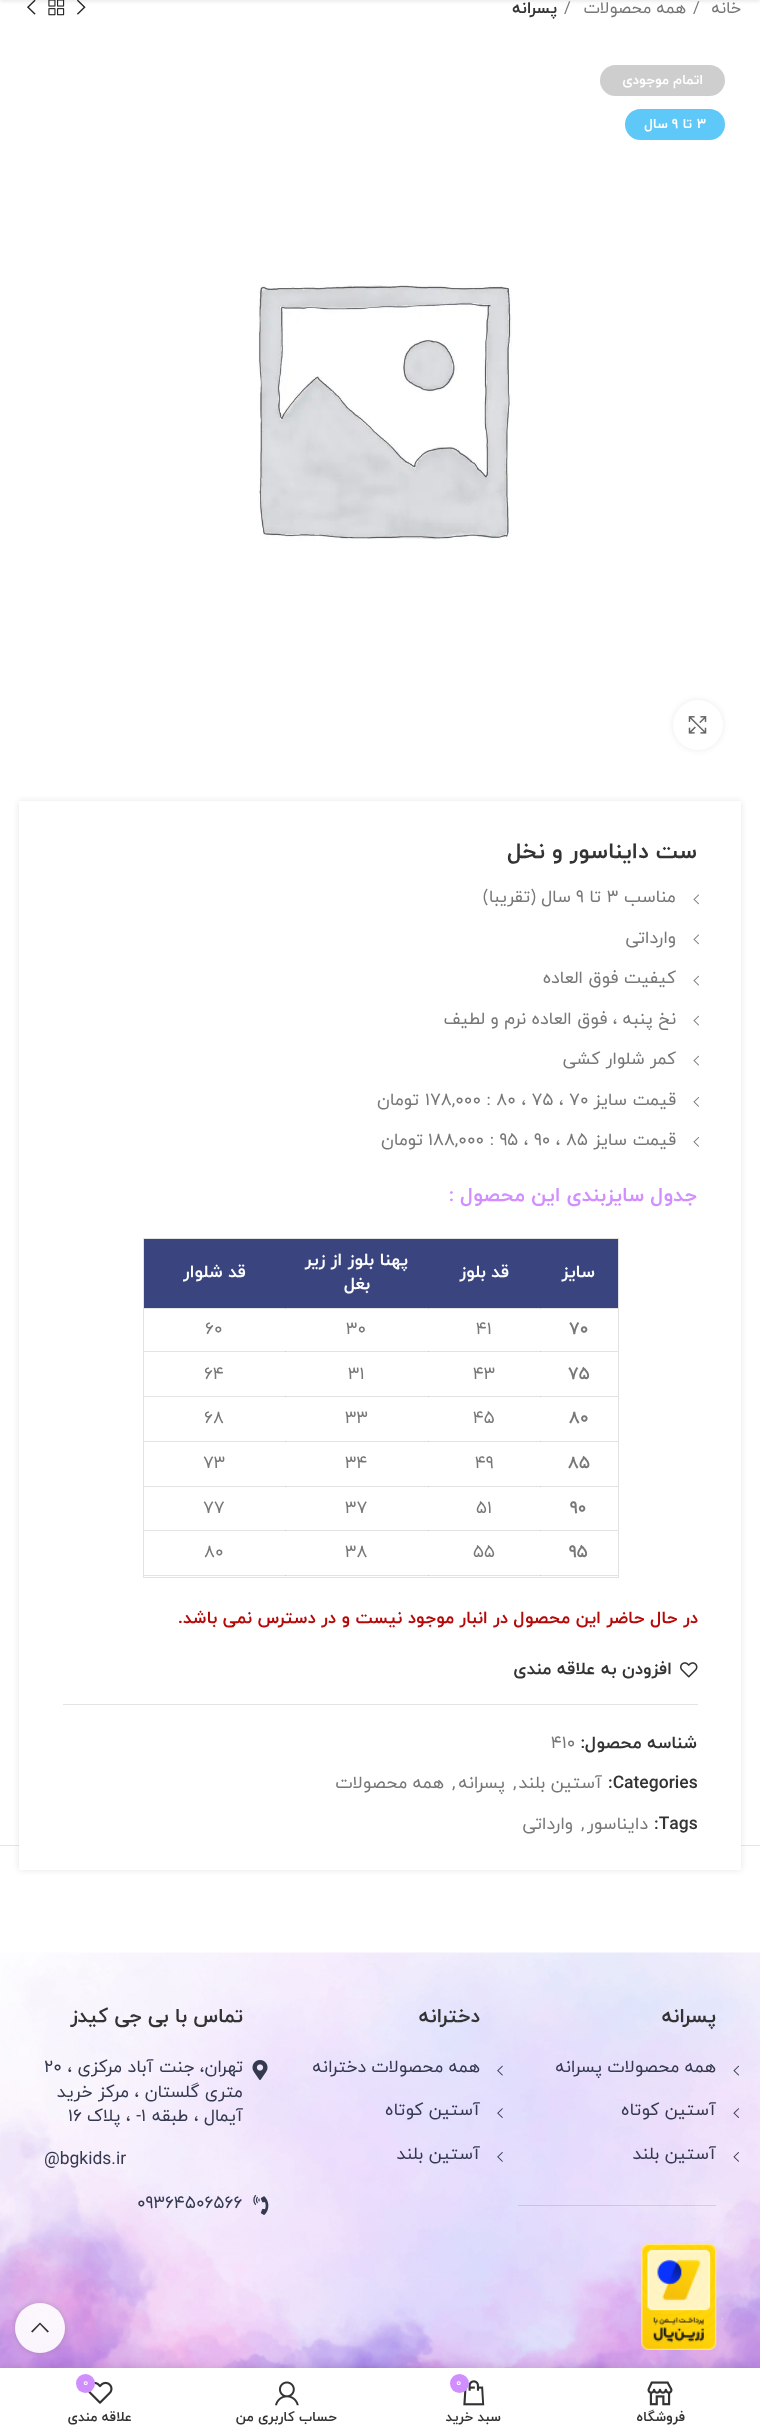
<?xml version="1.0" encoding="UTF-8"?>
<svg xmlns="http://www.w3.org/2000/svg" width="760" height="2436">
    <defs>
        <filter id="blur1" x="-50%" y="-200%" width="200%" height="500%"><feGaussianBlur stdDeviation="2"/></filter>
        <filter id="blur2" x="-50%" y="-200%" width="200%" height="500%"><feGaussianBlur stdDeviation="3"/></filter>
        <clipPath id="clip1"><path d="M 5 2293 H 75 V 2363 H 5 Z M 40 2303 C 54 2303 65 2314 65 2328 C 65 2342 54 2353 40 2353 C 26 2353 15 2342 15 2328 C 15 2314 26 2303 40 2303 Z" clip-rule="evenodd"/></clipPath>
        <filter id="blur3" x="-50%" y="-200%" width="200%" height="500%"><feGaussianBlur stdDeviation="5.5"/></filter>
    </defs>
    <rect width="100%" height="100%" fill="#FFFFFF"/>
    <image x="77" y="0" width="9" height="15" href="img_01.png"/>
    <image x="48" y="0" width="17" height="16" href="img_02.png"/>
    <image x="27" y="0" width="9" height="15" href="img_03.png"/>
    <rect x="0" y="-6" width="760" height="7" fill="#000000" fill-opacity="0.1" filter="url(#blur1)"/>
    <text x="741" y="13" font-family="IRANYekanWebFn" font-size="16.5" direction="rtl" fill="#777777">خانه</text>
    <text x="693" y="13" font-family="IRANYekanWebFn" font-size="16.5" fill="#777777">/</text>
    <text x="686" y="13" font-family="IRANYekanWebFn" font-size="16.5" direction="rtl" fill="#777777">همه محصولات</text>
    <text x="564" y="13" font-family="IRANYekanWebFn" font-size="16.5" fill="#777777">/</text>
    <text x="557" y="13" font-family="IRANYekanWebFn" font-size="16.5" font-weight="700" direction="rtl" fill="#333333">پسرانه</text>
    <rect x="600" y="65" width="125" height="31" rx="15.5" fill="#CFCECE"/>
    <text x="703" y="84" font-family="IRANYekanWebFn" font-size="13.75" font-weight="700" direction="rtl" fill="#FFFFFF">اتمام موجودی</text>
    <rect x="625" y="109" width="100" height="31" rx="15.5" fill="#5EC8F8"/>
    <text x="697" y="128" font-family="IRANYekanWebFn" font-size="13.75" font-weight="700" fill="#FFFFFF">3</text>
    <text x="692" y="128" font-family="IRANYekanWebFn" font-size="13.75" font-weight="700" direction="rtl" fill="#FFFFFF">تا</text>
    <text x="672" y="128" font-family="IRANYekanWebFn" font-size="13.75" font-weight="700" fill="#FFFFFF">9</text>
    <text x="668" y="128" font-family="IRANYekanWebFn" font-size="13.75" font-weight="700" direction="rtl" fill="#FFFFFF">سال</text>
    <image x="258" y="285" width="254" height="256" href="img_04.png"/>
    <rect x="673" y="700" width="50" height="50" rx="25" fill="#000000" fill-opacity="0.08" filter="url(#blur2)"/>
    <circle cx="698" cy="725" r="25" fill="#FFFFFF"/>
    <image x="688" y="716" width="19" height="18" href="img_05.png"/>
    <rect x="0" y="1845" width="760" height="1" fill="#E6E6E6"/>
    <rect x="19" y="801" width="722" height="1069" fill="#000000" fill-opacity="0.1" filter="url(#blur2)"/>
    <rect x="19" y="801" width="722" height="1069" fill="#FFFFFF"/>
    <rect x="285" y="1308" width="333" height="1" fill="#E3E3E3"/>
    <rect x="540" y="1308" width="1" height="1" fill="#CACACA"/>
    <rect x="428" y="1308" width="1" height="1" fill="#CACACA"/>
    <rect x="285" y="1351" width="333" height="1" fill="#E3E3E3"/>
    <rect x="540" y="1351" width="1" height="1" fill="#CACACA"/>
    <rect x="428" y="1351" width="1" height="1" fill="#CACACA"/>
    <rect x="285" y="1396" width="333" height="1" fill="#E3E3E3"/>
    <rect x="540" y="1396" width="1" height="1" fill="#CACACA"/>
    <rect x="428" y="1396" width="1" height="1" fill="#CACACA"/>
    <rect x="285" y="1441" width="333" height="1" fill="#E3E3E3"/>
    <rect x="540" y="1441" width="1" height="1" fill="#CACACA"/>
    <rect x="428" y="1441" width="1" height="1" fill="#CACACA"/>
    <rect x="285" y="1486" width="333" height="1" fill="#E3E3E3"/>
    <rect x="540" y="1486" width="1" height="1" fill="#CACACA"/>
    <rect x="428" y="1486" width="1" height="1" fill="#CACACA"/>
    <rect x="285" y="1530" width="333" height="1" fill="#E3E3E3"/>
    <rect x="540" y="1530" width="1" height="1" fill="#CACACA"/>
    <rect x="428" y="1530" width="1" height="1" fill="#CACACA"/>
    <rect x="285" y="1575" width="333" height="1" fill="#E3E3E3"/>
    <rect x="540" y="1575" width="1" height="1" fill="#CACACA"/>
    <rect x="428" y="1575" width="1" height="1" fill="#CACACA"/>
    <text x="697" y="858" font-family="IRANYekanWebFn" font-size="22.5" font-weight="700" direction="rtl" fill="#333333">ست دایناسور و نخل</text>
    <image x="693" y="894" width="6" height="11" href="img_06.png"/>
    <text x="676" y="902" font-family="IRANYekanWebFn" font-size="17.5" direction="rtl" fill="#777777">مناسب</text>
    <text x="607" y="902" font-family="IRANYekanWebFn" font-size="17.5" fill="#777777">3</text>
    <text x="601" y="902" font-family="IRANYekanWebFn" font-size="17.5" direction="rtl" fill="#777777">تا</text>
    <text x="576" y="902" font-family="IRANYekanWebFn" font-size="17.5" fill="#777777">9</text>
    <text x="571" y="902" font-family="IRANYekanWebFn" font-size="17.5" direction="rtl" fill="#777777">سال (تقریبا)</text>
    <image x="693" y="934" width="6" height="11" href="img_06.png"/>
    <text x="676" y="943" font-family="IRANYekanWebFn" font-size="17.5" direction="rtl" fill="#777777">وارداتی</text>
    <image x="693" y="975" width="6" height="11" href="img_07.png"/>
    <text x="676" y="983" font-family="IRANYekanWebFn" font-size="17.5" direction="rtl" fill="#777777">کیفیت فوق العاده</text>
    <image x="693" y="1015" width="6" height="11" href="img_07.png"/>
    <text x="676" y="1024" font-family="IRANYekanWebFn" font-size="17.5" direction="rtl" fill="#777777">نخ پنبه ، فوق العاده نرم و لطیف</text>
    <image x="693" y="1055" width="6" height="11" href="img_07.png"/>
    <text x="676" y="1064" font-family="IRANYekanWebFn" font-size="17.5" direction="rtl" fill="#777777">کمر شلوار کشی</text>
    <image x="693" y="1097" width="6" height="10" href="img_08.png"/>
    <text x="676" y="1105" font-family="IRANYekanWebFn" font-size="17.5" direction="rtl" fill="#777777">قیمت سایز</text>
    <text x="425" y="1105" font-family="IRANYekanWebFn" font-size="17.5" fill="#777777">178,000 : 80 ، 75 ، 70</text>
    <text x="419" y="1105" font-family="IRANYekanWebFn" font-size="17.5" direction="rtl" fill="#777777">تومان</text>
    <image x="693" y="1137" width="6" height="10" href="img_08.png"/>
    <text x="676" y="1145" font-family="IRANYekanWebFn" font-size="17.5" direction="rtl" fill="#777777">قیمت سایز</text>
    <text x="428" y="1145" font-family="IRANYekanWebFn" font-size="17.5" fill="#777777">188,000 : 95 ، 90 ، 85</text>
    <text x="423" y="1145" font-family="IRANYekanWebFn" font-size="17.5" direction="rtl" fill="#777777">تومان</text>
    <text x="697" y="1201" font-family="IRANYekanWebFn" font-size="20" font-weight="700" direction="rtl" fill="#D18EFF">جدول سایزبندی این محصول :</text>
    <rect x="143.5" y="1238.5" width="475" height="339" fill="none" stroke="#E2E2E2"/>
    <rect x="144" y="1239" width="474" height="69" fill="#3A457F"/>
    <text x="595" y="1277" font-family="IRANYekanWebFn" font-size="17.5" font-weight="700" direction="rtl" fill="#FFFFFF">سایز</text>
    <text x="509" y="1277" font-family="IRANYekanWebFn" font-size="17.5" font-weight="700" direction="rtl" fill="#FFFFFF">قد بلوز</text>
    <text x="408" y="1265" font-family="IRANYekanWebFn" font-size="17.5" font-weight="700" direction="rtl" fill="#FFFFFF">پهنا بلوز از زیر</text>
    <text x="370" y="1289" font-family="IRANYekanWebFn" font-size="17.5" font-weight="700" direction="rtl" fill="#FFFFFF">بغل</text>
    <rect x="144" y="1308" width="142" height="1" fill="#E4E4E4"/>
    <rect x="285" y="1308" width="1" height="1" fill="#CBCBCB"/>
    <text x="246" y="1277" font-family="IRANYekanWebFn" font-size="17.5" font-weight="700" direction="rtl" fill="#FFFFFF">قد شلوار</text>
    <text x="569" y="1334" font-family="IRANYekanWebFn" font-size="17.5" font-weight="700" fill="#777777">70</text>
    <text x="476" y="1334" font-family="IRANYekanWebFn" font-size="17.5" fill="#777777">41</text>
    <text x="346" y="1334" font-family="IRANYekanWebFn" font-size="17.5" fill="#777777">30</text>
    <rect x="144" y="1351" width="142" height="1" fill="#E4E4E4"/>
    <rect x="285" y="1351" width="1" height="1" fill="#CBCBCB"/>
    <text x="205" y="1334" font-family="IRANYekanWebFn" font-size="17.5" fill="#777777">60</text>
    <text x="568" y="1379" font-family="IRANYekanWebFn" font-size="17.5" font-weight="700" fill="#777777">75</text>
    <text x="473" y="1379" font-family="IRANYekanWebFn" font-size="17.5" fill="#777777">43</text>
    <text x="348" y="1379" font-family="IRANYekanWebFn" font-size="17.5" fill="#777777">31</text>
    <rect x="144" y="1396" width="142" height="1" fill="#E4E4E4"/>
    <rect x="285" y="1396" width="1" height="1" fill="#CBCBCB"/>
    <text x="204" y="1379" font-family="IRANYekanWebFn" font-size="17.5" fill="#777777">64</text>
    <text x="569" y="1423" font-family="IRANYekanWebFn" font-size="17.5" font-weight="700" fill="#777777">80</text>
    <text x="473" y="1423" font-family="IRANYekanWebFn" font-size="17.5" fill="#777777">45</text>
    <text x="345" y="1423" font-family="IRANYekanWebFn" font-size="17.5" fill="#777777">33</text>
    <rect x="144" y="1441" width="142" height="1" fill="#E4E4E4"/>
    <rect x="285" y="1441" width="1" height="1" fill="#CBCBCB"/>
    <text x="204" y="1423" font-family="IRANYekanWebFn" font-size="17.5" fill="#777777">68</text>
    <text x="568" y="1468" font-family="IRANYekanWebFn" font-size="17.5" font-weight="700" fill="#777777">85</text>
    <text x="475" y="1468" font-family="IRANYekanWebFn" font-size="17.5" fill="#777777">49</text>
    <text x="345" y="1468" font-family="IRANYekanWebFn" font-size="17.5" fill="#777777">34</text>
    <rect x="144" y="1486" width="142" height="1" fill="#E4E4E4"/>
    <rect x="285" y="1486" width="1" height="1" fill="#CBCBCB"/>
    <text x="203" y="1468" font-family="IRANYekanWebFn" font-size="17.5" fill="#777777">73</text>
    <text x="570" y="1513" font-family="IRANYekanWebFn" font-size="17.5" font-weight="700" fill="#777777">90</text>
    <text x="476" y="1513" font-family="IRANYekanWebFn" font-size="17.5" fill="#777777">51</text>
    <text x="345" y="1513" font-family="IRANYekanWebFn" font-size="17.5" fill="#777777">37</text>
    <rect x="144" y="1530" width="142" height="1" fill="#E4E4E4"/>
    <rect x="285" y="1530" width="1" height="1" fill="#CBCBCB"/>
    <text x="203" y="1513" font-family="IRANYekanWebFn" font-size="17.5" fill="#777777">77</text>
    <text x="569" y="1557" font-family="IRANYekanWebFn" font-size="17.5" font-weight="700" fill="#777777">95</text>
    <text x="473" y="1557" font-family="IRANYekanWebFn" font-size="17.5" fill="#777777">55</text>
    <text x="345" y="1557" font-family="IRANYekanWebFn" font-size="17.5" fill="#777777">38</text>
    <rect x="144" y="1575" width="142" height="1" fill="#E4E4E4"/>
    <rect x="285" y="1575" width="1" height="1" fill="#CBCBCB"/>
    <text x="204" y="1557" font-family="IRANYekanWebFn" font-size="17.5" fill="#777777">80</text>
    <text x="698" y="1623" font-family="IRANYekanWebFn" font-size="17.5" font-weight="700" direction="rtl" fill="#B50808">در حال حاضر این محصول در انبار موجود نیست و در دسترس نمی باشد.</text>
    <image x="680" y="1662" width="18" height="16" href="img_09.png"/>
    <text x="672" y="1674" font-family="IRANYekanWebFn" font-size="17.5" font-weight="700" direction="rtl" fill="#333333">افزودن به علاقه مندی</text>
    <rect x="63" y="1704" width="635" height="1" fill="#E4E4E4"/>
    <text x="697" y="1748" font-family="IRANYekanWebFn" font-size="17.5" font-weight="700" direction="rtl" fill="#333333">شناسه محصول:</text>
    <text x="551" y="1748" font-family="IRANYekanWebFn" font-size="17.5" fill="#777777">410</text>
    <text x="608" y="1788" font-family="IRANYekanWebFn" font-size="17.5" font-weight="700" fill="#333333">:Categories</text>
    <text x="602" y="1788" font-family="IRANYekanWebFn" font-size="17.5" direction="rtl" fill="#777777">آستین بلند</text>
    <text x="513" y="1788" font-family="IRANYekanWebFn" font-size="17.5" fill="#777777">,</text>
    <text x="505" y="1788" font-family="IRANYekanWebFn" font-size="17.5" direction="rtl" fill="#777777">پسرانه</text>
    <text x="452" y="1788" font-family="IRANYekanWebFn" font-size="17.5" fill="#777777">,</text>
    <text x="444" y="1788" font-family="IRANYekanWebFn" font-size="17.5" direction="rtl" fill="#777777">همه محصولات</text>
    <text x="654" y="1829" font-family="IRANYekanWebFn" font-size="17.5" font-weight="700" fill="#333333">:Tags</text>
    <text x="648" y="1829" font-family="IRANYekanWebFn" font-size="17.5" direction="rtl" fill="#777777">دایناسور</text>
    <text x="581" y="1829" font-family="IRANYekanWebFn" font-size="17.5" fill="#777777">,</text>
    <text x="573" y="1829" font-family="IRANYekanWebFn" font-size="17.5" direction="rtl" fill="#777777">وارداتی</text>
    <image x="0" y="1952" width="760" height="416" href="img_10.png"/>
    <rect x="518" y="2205" width="198" height="1" fill="#000000" fill-opacity="0.11"/>
    <text x="716" y="2022" font-family="IRANYekanWebFn" font-size="20" font-weight="700" direction="rtl" fill="#333333">پسرانه</text>
    <image x="733" y="2065" width="6" height="11" href="img_11.png"/>
    <text x="716" y="2072" font-family="IRANYekanWebFn" font-size="17.5" direction="rtl" fill="#353950">همه محصولات پسرانه</text>
    <image x="733" y="2108" width="6" height="10" href="img_12.png"/>
    <text x="716" y="2115" font-family="IRANYekanWebFn" font-size="17.5" direction="rtl" fill="#353950">آستین کوتاه</text>
    <image x="733" y="2152" width="6" height="10" href="img_13.png"/>
    <text x="716" y="2159" font-family="IRANYekanWebFn" font-size="17.5" direction="rtl" fill="#353950">آستین بلند</text>
    <image x="641" y="2243" width="76" height="107" href="img_14.png"/>
    <text x="480" y="2022" font-family="IRANYekanWebFn" font-size="20" font-weight="700" direction="rtl" fill="#333333">دخترانه</text>
    <image x="497" y="2065" width="6" height="11" href="img_15.png"/>
    <text x="480" y="2072" font-family="IRANYekanWebFn" font-size="17.5" direction="rtl" fill="#353950">همه محصولات دخترانه</text>
    <image x="497" y="2108" width="6" height="10" href="img_16.png"/>
    <text x="480" y="2115" font-family="IRANYekanWebFn" font-size="17.5" direction="rtl" fill="#353950">آستین کوتاه</text>
    <image x="497" y="2152" width="6" height="10" href="img_17.png"/>
    <text x="480" y="2159" font-family="IRANYekanWebFn" font-size="17.5" direction="rtl" fill="#353950">آستین بلند</text>
    <text x="243" y="2022" font-family="IRANYekanWebFn" font-size="20" font-weight="700" direction="rtl" fill="#333333">تماس با بی جی کیدز</text>
    <image x="252" y="2060" width="16" height="20" href="img_18.png"/>
    <text x="243" y="2072" font-family="IRANYekanWebFn" font-size="17.5" direction="rtl" fill="#353950">تهران، جنت آباد مرکزی ،</text>
    <text x="44" y="2072" font-family="IRANYekanWebFn" font-size="17.5" fill="#353950">20</text>
    <text font-family="IRANYekanWebFn" font-size="17.5" direction="rtl" fill="#353950">
        <tspan x="243" y="2097">متری گلستان ، مرکز خرید</tspan>
        <tspan x="243" y="2121">آیمال ، طبقه</tspan>
    </text>
    <text x="141" y="2121" font-family="IRANYekanWebFn" font-size="17.5" fill="#353950">1</text>
    <text x="141" y="2121" font-family="IRANYekanWebFn" font-size="17.5" direction="rtl" fill="#353950">- ، پلاک</text>
    <text x="68" y="2121" font-family="IRANYekanWebFn" font-size="17.5" fill="#353950">16</text>
    <text x="44" y="2164" font-family="IRANYekanWebFn" font-size="17.5" fill="#353950">@bgkids.ir</text>
    <image x="253" y="2195" width="16" height="20" href="img_19.png"/>
    <text x="137" y="2208" font-family="IRANYekanWebFn" font-size="17.5" fill="#353950">09364506566</text>
    <g clip-path="url(#clip1)">
        <rect x="15" y="2303" width="50" height="50" rx="25" fill="#000000" fill-opacity="0.17" filter="url(#blur2)"/>
    </g>
    <circle cx="40" cy="2328" r="25" fill="#FFFFFF" fill-opacity="0.9"/>
    <path d="M 40 2322.5 L 49 2331.5 L 47.5 2332.5 L 40 2324.5 L 32.5 2332.5 L 31 2331.5 Z" fill="#333333"/>
    <rect x="0" y="2368" width="760" height="68" fill="#000000" fill-opacity="0.12" filter="url(#blur3)"/>
    <rect x="0" y="2368" width="760" height="68" fill="#FFFFFF"/>
    <image x="647" y="2381" width="26" height="25" href="img_20.png"/>
    <text x="685" y="2421" font-family="IRANYekanWebFn" font-size="13.75" font-weight="700" direction="rtl" fill="#333333">فروشگاه</text>
    <image x="463" y="2380" width="22" height="26" href="img_21.png"/>
    <circle cx="459.5" cy="2383.5" r="9.5" fill="#D18EFF"/>
    <text x="456" y="2386" font-family="IRANYekanWebFn" font-size="11" fill="#FFFFFF">0</text>
    <text x="501" y="2421" font-family="IRANYekanWebFn" font-size="13.75" font-weight="700" direction="rtl" fill="#333333">سبد خرید</text>
    <image x="275" y="2381" width="24" height="25" href="img_22.png"/>
    <text x="337" y="2421" font-family="IRANYekanWebFn" font-size="13.75" font-weight="700" direction="rtl" fill="#333333">حساب کاربری من</text>
    <image x="88" y="2381" width="25" height="23" href="img_23.png"/>
    <circle cx="85.5" cy="2383.5" r="9.5" fill="#D18EFF"/>
    <text x="83" y="2386" font-family="IRANYekanWebFn" font-size="11" fill="#FFFFFF">0</text>
    <text x="132" y="2421" font-family="IRANYekanWebFn" font-size="13.75" font-weight="700" direction="rtl" fill="#333333">علاقه مندی</text>
</svg>
